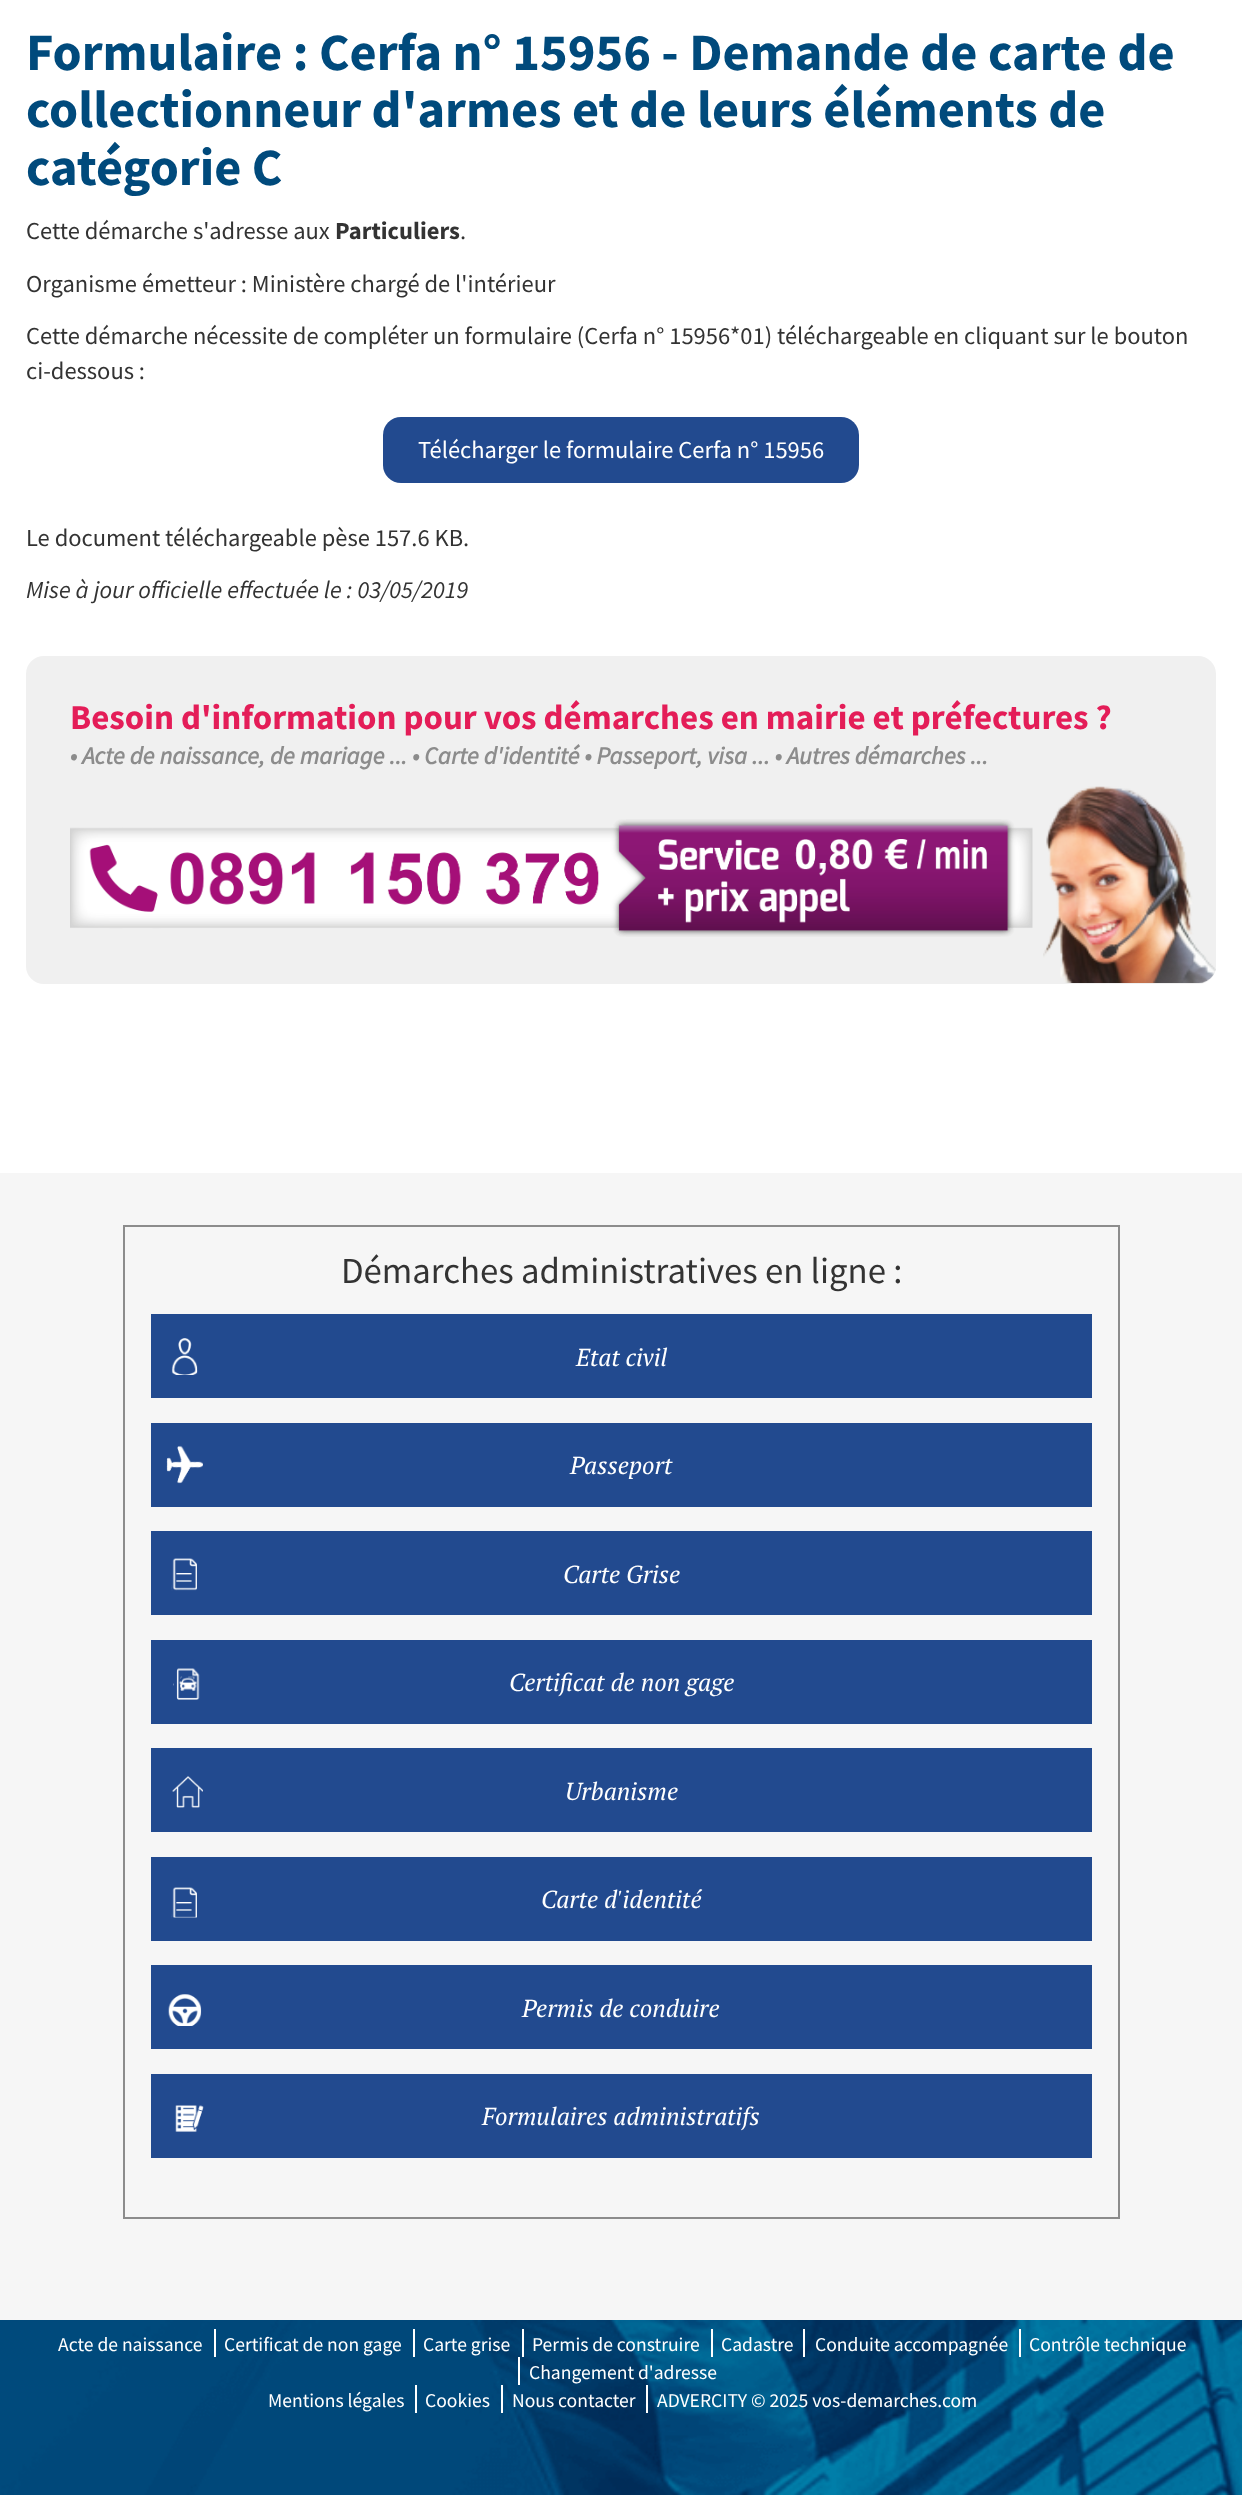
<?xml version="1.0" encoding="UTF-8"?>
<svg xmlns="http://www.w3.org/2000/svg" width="1242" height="2495">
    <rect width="100%" height="100%" fill="#FFFFFF"/>
    <text font-family="Source Sans Pro" font-size="52.5" font-weight="700" fill="#004A7C">
        <tspan x="26" y="70">Formulaire : Cerfa n° 15956 - Demande de carte de</tspan>
        <tspan x="26" y="127">collectionneur d'armes et de leurs éléments de</tspan>
        <tspan x="26" y="185">catégorie C</tspan>
    </text>
    <text x="26" y="239" font-family="Source Sans Pro" font-size="24.5" fill="#333333">Cette démarche s'adresse aux</text>
    <text x="335" y="239" font-family="Source Sans Pro" font-size="24.5" font-weight="700" fill="#333333">Particuliers</text>
    <text x="460" y="239" font-family="Source Sans Pro" font-size="24.5" fill="#333333">.</text>
    <text x="26" y="292" font-family="Source Sans Pro" font-size="24.5" fill="#333333">Organisme émetteur : Ministère chargé de l'intérieur</text>
    <text font-family="Source Sans Pro" font-size="24.5" fill="#333333">
        <tspan x="26" y="344">Cette démarche nécessite de compléter un formulaire (Cerfa n° 15956*01) téléchargeable en cliquant sur le bouton</tspan>
        <tspan x="26" y="379">ci-dessous :</tspan>
    </text>
    <rect x="383" y="417" width="476" height="66" rx="18" fill="#224A8F"/>
    <text x="418" y="458" font-family="Source Sans Pro" font-size="24.5" fill="#FFFFFF">Télécharger le formulaire Cerfa n° 15956</text>
    <text x="26" y="546" font-family="Source Sans Pro" font-size="24.5" fill="#333333">Le document téléchargeable pèse 157.6 KB.</text>
    <text x="26" y="598" font-family="Source Sans Pro" font-size="24.5" font-style="italic" fill="#333333">Mise à jour officielle effectuée le : 03/05/2019</text>
    <rect x="26" y="656" width="1190" height="328" rx="18" fill="#F0F0F0"/>
    <image x="1043" y="786" width="173" height="197" href="img_01.png"/>
    <text x="70" y="729" font-family="Source Sans Pro" font-size="35" font-weight="700" fill="#E41D58">Besoin d'information pour vos démarches en mairie et préfectures ?</text>
    <text x="70" y="764" font-family="Source Sans Pro" font-size="24.5" font-weight="700" font-style="italic" fill="#8C8C8C">• Acte de naissance, de mariage ... • Carte d'identité • Passeport, visa ... • Autres démarches ...</text>
    <image x="70" y="819" width="963" height="118" href="img_02.png"/>
    <rect x="0" y="1173" width="1242" height="1147" fill="#F6F6F6"/>
    <rect x="124" y="1226" width="995" height="992" fill="none" stroke="#8C8C8C" stroke-width="2"/>
    <text x="341" y="1283" font-family="Source Sans Pro" font-size="36.75" fill="#333333">Démarches administratives en ligne :</text>
    <rect x="151" y="1314" width="941" height="84" fill="#224A8F"/>
    <image x="171" y="1338" width="27" height="37" href="img_03.png"/>
    <text x="576" y="1366" font-family="PT Serif" font-size="24.5" font-style="italic" fill="#FFFFFF">Etat civil</text>
    <rect x="151" y="1423" width="941" height="84" fill="#224A8F"/>
    <image x="166" y="1445" width="37" height="39" href="img_04.png"/>
    <text x="570" y="1474" font-family="PT Serif" font-size="24.5" font-style="italic" fill="#FFFFFF">Passeport</text>
    <rect x="151" y="1531" width="941" height="84" fill="#224A8F"/>
    <image x="171" y="1558" width="26" height="33" href="img_05.png"/>
    <text x="563" y="1583" font-family="PT Serif" font-size="24.5" font-style="italic" fill="#FFFFFF">Carte Grise</text>
    <rect x="151" y="1640" width="941" height="84" fill="#224A8F"/>
    <image x="173" y="1668" width="27" height="32" href="img_06.png"/>
    <text x="509" y="1691" font-family="PT Serif" font-size="24.5" font-style="italic" fill="#FFFFFF">Certificat de non gage</text>
    <rect x="151" y="1748" width="941" height="84" fill="#224A8F"/>
    <image x="172" y="1776" width="31" height="32" href="img_07.png"/>
    <text x="565" y="1800" font-family="PT Serif" font-size="24.5" font-style="italic" fill="#FFFFFF">Urbanisme</text>
    <rect x="151" y="1857" width="941" height="84" fill="#224A8F"/>
    <image x="171" y="1887" width="26" height="31" href="img_08.png"/>
    <text x="541" y="1908" font-family="PT Serif" font-size="24.5" font-style="italic" fill="#FFFFFF">Carte d'identité</text>
    <rect x="151" y="1965" width="941" height="84" fill="#224A8F"/>
    <image x="168" y="1994" width="34" height="32" href="img_09.png"/>
    <text x="522" y="2017" font-family="PT Serif" font-size="24.5" font-style="italic" fill="#FFFFFF">Permis de conduire</text>
    <rect x="151" y="2074" width="941" height="84" fill="#224A8F"/>
    <image x="175" y="2105" width="29" height="27" href="img_10.png"/>
    <text x="482" y="2125" font-family="PT Serif" font-size="24.5" font-style="italic" fill="#FFFFFF">Formulaires administratifs</text>
    <image x="0" y="2320" width="1242" height="175" href="img_11.png"/>
    <text x="58" y="2351" font-family="Source Sans Pro" font-size="19.6" fill="#FFFFFF">Acte de naissance</text>
    <rect x="214" y="2329" width="2" height="28" fill="#FFFFFF"/>
    <text x="224" y="2351" font-family="Source Sans Pro" font-size="19.6" fill="#FFFFFF">Certificat de non gage</text>
    <rect x="413" y="2329" width="2" height="28" fill="#FFFFFF"/>
    <text x="423" y="2351" font-family="Source Sans Pro" font-size="19.6" fill="#FFFFFF">Carte grise</text>
    <rect x="522" y="2329" width="2" height="28" fill="#FFFFFF"/>
    <text x="532" y="2351" font-family="Source Sans Pro" font-size="19.6" fill="#FFFFFF">Permis de construire</text>
    <rect x="711" y="2329" width="2" height="28" fill="#FFFFFF"/>
    <text x="721" y="2351" font-family="Source Sans Pro" font-size="19.6" fill="#FFFFFF">Cadastre</text>
    <rect x="803" y="2329" width="2" height="28" fill="#FFFFFF"/>
    <text x="815" y="2351" font-family="Source Sans Pro" font-size="19.6" fill="#FFFFFF">Conduite accompagnée</text>
    <rect x="1019" y="2329" width="2" height="28" fill="#FFFFFF"/>
    <text x="1029" y="2351" font-family="Source Sans Pro" font-size="19.6" fill="#FFFFFF">Contrôle technique</text>
    <rect x="518" y="2357" width="2" height="28" fill="#FFFFFF"/>
    <text x="529" y="2379" font-family="Source Sans Pro" font-size="19.6" fill="#FFFFFF">Changement d'adresse</text>
    <text x="268" y="2407" font-family="Source Sans Pro" font-size="19.6" fill="#FFFFFF">Mentions légales</text>
    <rect x="415" y="2385" width="2" height="28" fill="#FFFFFF"/>
    <text x="425" y="2407" font-family="Source Sans Pro" font-size="19.6" fill="#FFFFFF">Cookies</text>
    <rect x="501" y="2385" width="2" height="28" fill="#FFFFFF"/>
    <text x="512" y="2407" font-family="Source Sans Pro" font-size="19.6" fill="#FFFFFF">Nous contacter</text>
    <rect x="646" y="2385" width="2" height="28" fill="#FFFFFF"/>
    <text x="657" y="2407" font-family="Source Sans Pro" font-size="19.6" fill="#FFFFFF">ADVERCITY © 2025 vos-demarches.com</text>
</svg>
